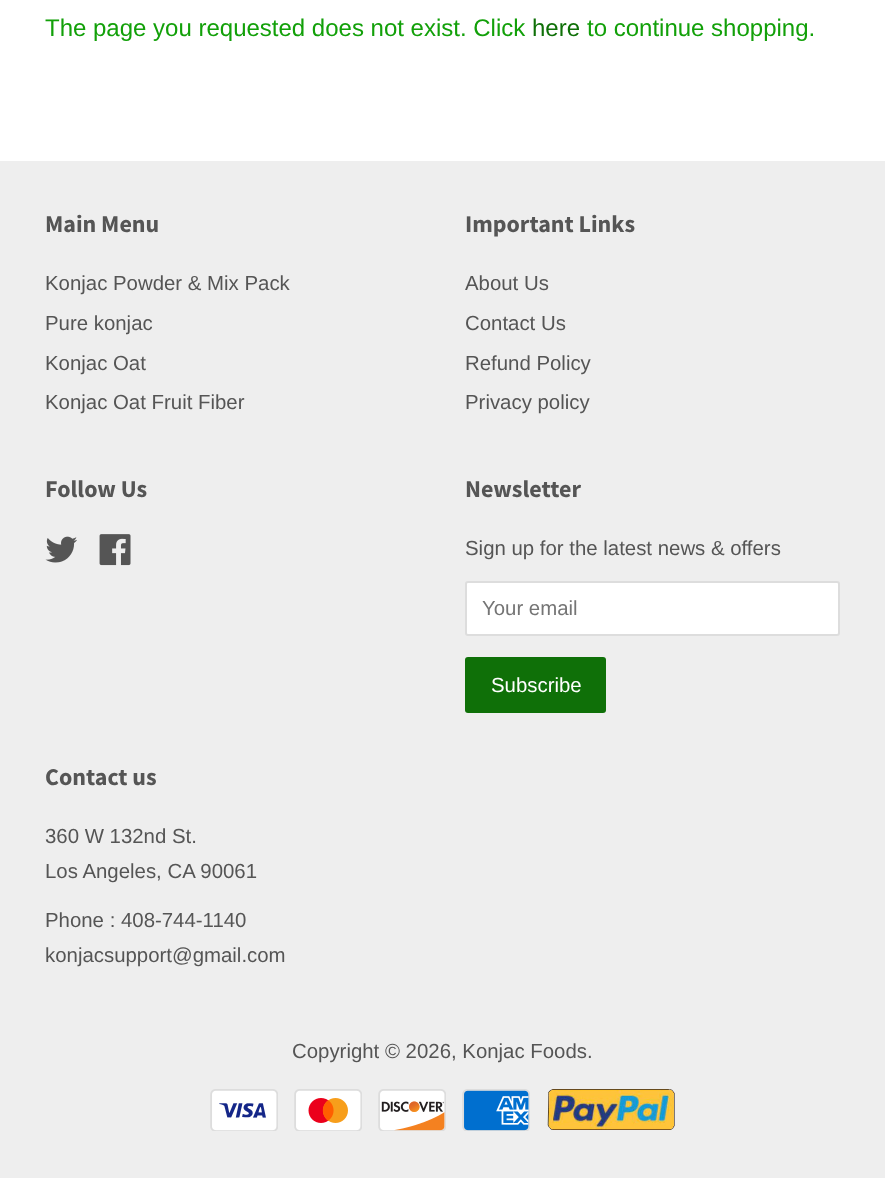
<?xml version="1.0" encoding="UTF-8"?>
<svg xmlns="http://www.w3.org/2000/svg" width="885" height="1178">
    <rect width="100%" height="100%" fill="#FFFFFF"/>
    <text x="45" y="36" font-family="Liberation Sans" font-size="24" fill="#12A009">The page you requested does not exist. Click</text>
    <text x="532" y="36" font-family="Liberation Sans" font-size="24" fill="#0F7008">here</text>
    <text x="587" y="36" font-family="Liberation Sans" font-size="24" fill="#12A009">to continue shopping.</text>
    <rect x="0" y="161" width="885" height="1017" fill="#EEEEEE"/>
    <text x="45" y="232" font-family="Source Sans Pro" font-size="24" font-weight="700" fill="#555555">Main Menu</text>
    <text font-family="Liberation Sans" font-size="20.4" fill="#555555">
        <tspan x="45" y="290">Konjac Powder &amp; Mix Pack</tspan>
        <tspan x="45" y="330">Pure konjac</tspan>
        <tspan x="45" y="370">Konjac Oat</tspan>
        <tspan x="45" y="409">Konjac Oat Fruit Fiber</tspan>
    </text>
    <text x="465" y="232" font-family="Source Sans Pro" font-size="24" font-weight="700" fill="#555555">Important Links</text>
    <text font-family="Liberation Sans" font-size="20.4" fill="#555555">
        <tspan x="465" y="290">About Us</tspan>
        <tspan x="465" y="330">Contact Us</tspan>
        <tspan x="465" y="370">Refund Policy</tspan>
        <tspan x="465" y="409">Privacy policy</tspan>
    </text>
    <text x="45" y="497" font-family="Source Sans Pro" font-size="24" font-weight="700" fill="#555555">Follow Us</text>
    <image x="45" y="536" width="32" height="27" href="img_01.png"/>
    <image x="99" y="534" width="32" height="32" href="img_02.png"/>
    <text x="465" y="497" font-family="Source Sans Pro" font-size="24" font-weight="700" fill="#555555">Newsletter</text>
    <text x="465" y="555" font-family="Liberation Sans" font-size="20.4" fill="#555555">Sign up for the latest news &amp; offers</text>
    <rect x="466" y="582" width="373" height="53" rx="2" fill="#FFFFFF" stroke="#DDDDDD" stroke-width="2"/>
    <text x="482" y="615" font-family="Liberation Sans" font-size="20.4" fill="#757575">Your email</text>
    <rect x="465" y="657" width="141" height="56" rx="3" fill="#0F7008"/>
    <text x="491" y="692" font-family="Liberation Sans" font-size="20.4" fill="#FFFFFF">Subscribe</text>
    <text x="45" y="785" font-family="Source Sans Pro" font-size="24" font-weight="700" fill="#555555">Contact us</text>
    <text font-family="Liberation Sans" font-size="20.4" fill="#555555">
        <tspan x="45" y="843">360 W 132nd St.</tspan>
        <tspan x="45" y="878">Los Angeles, CA 90061</tspan>
    </text>
    <text font-family="Liberation Sans" font-size="20.4" fill="#555555">
        <tspan x="45" y="927">Phone : 408-744-1140</tspan>
        <tspan x="45" y="962">konjacsupport@gmail.com</tspan>
    </text>
    <text x="292" y="1058" font-family="Liberation Sans" font-size="20.4" fill="#555555">Copyright © 2026, Konjac Foods.</text>
    <image x="210" y="1089" width="68" height="42" href="img_03.png"/>
    <image x="294" y="1089" width="68" height="42" href="img_04.png"/>
    <image x="378" y="1089" width="68" height="42" href="img_05.png"/>
    <image x="462" y="1089" width="68" height="42" href="img_06.png"/>
    <image x="547" y="1089" width="128" height="41" href="img_07.png"/>
</svg>
